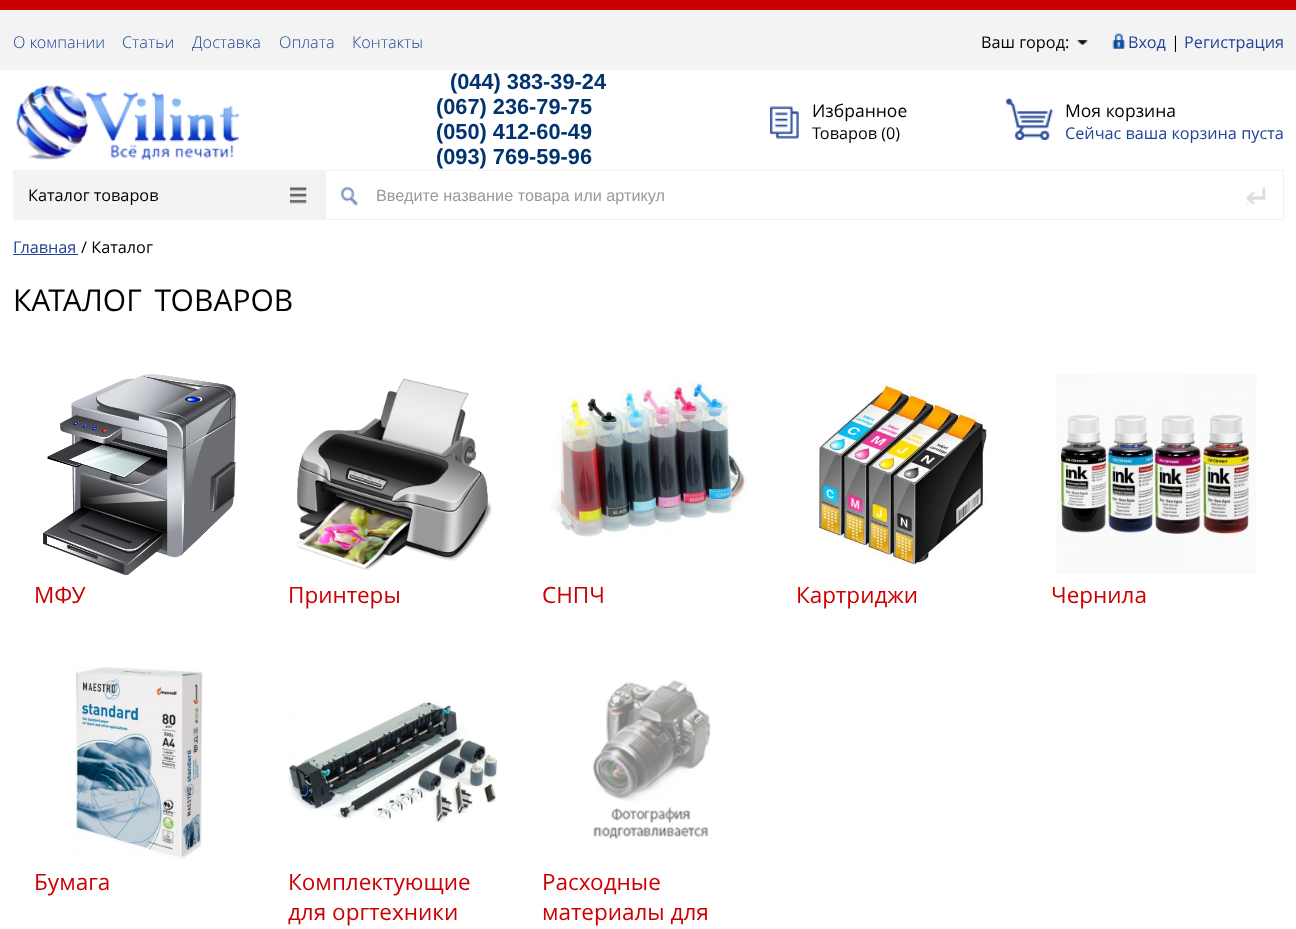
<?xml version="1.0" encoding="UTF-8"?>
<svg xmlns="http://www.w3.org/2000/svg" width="1296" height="929">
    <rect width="100%" height="100%" fill="#FFFFFF"/>
    <rect x="0" y="0" width="1296" height="10" fill="#CB0003"/>
    <rect x="0" y="10" width="1296" height="60" fill="#F3F3F3"/>
    <text x="13" y="48" font-family="Open Sans" font-size="16.25" font-weight="300" fill="#214496">О компании</text>
    <text x="122" y="48" font-family="Open Sans" font-size="16.25" font-weight="300" fill="#214496">Статьи</text>
    <text x="192" y="48" font-family="Open Sans" font-size="16.25" font-weight="300" fill="#214496">Доставка</text>
    <text x="279" y="48" font-family="Open Sans" font-size="16.25" font-weight="300" fill="#214496">Оплата</text>
    <text x="352" y="48" font-family="Open Sans" font-size="16.25" font-weight="300" fill="#214496">Контакты</text>
    <text x="981" y="48" font-family="Open Sans" font-size="16.25" fill="#000000">Ваш город:</text>
    <image x="1077" y="40" width="11" height="5" href="img_01.png"/>
    <image x="1112" y="33" width="13" height="16" href="img_02.png"/>
    <text x="1128" y="48" font-family="Open Sans" font-size="16.25" fill="#214496">Вход</text>
    <text x="1171" y="48" font-family="Open Sans" font-size="16.25" fill="#000000">|</text>
    <text x="1184" y="48" font-family="Open Sans" font-size="16.25" fill="#214496">Регистрация</text>
    <image x="15" y="85" width="224" height="75" href="img_03.png"/>
    <text x="450" y="89" font-family="Liberation Sans" font-size="21.75" font-weight="700" fill="#003370">(044) 383-39-24</text>
    <text font-family="Liberation Sans" font-size="21.75" font-weight="700" fill="#003370">
        <tspan x="436" y="114">(067) 236-79-75</tspan>
        <tspan x="436" y="139">(050) 412-60-49</tspan>
        <tspan x="436" y="164">(093) 769-59-96</tspan>
    </text>
    <image x="770" y="106" width="29" height="33" href="img_04.png"/>
    <text x="812" y="117" font-family="Open Sans" font-size="17.5" fill="#000000">Избранное</text>
    <text x="812" y="139" font-family="Open Sans" font-size="16.25" fill="#000000">Товаров (0)</text>
    <image x="1006" y="98" width="47" height="42" href="img_05.png"/>
    <text x="1065" y="117" font-family="Open Sans" font-size="17.5" fill="#000000">Моя корзина</text>
    <text x="1065" y="139" font-family="Open Sans" font-size="16.25" fill="#214496">Сейчас ваша корзина пуста</text>
    <rect x="13" y="170" width="312" height="50" fill="#F3F3F3"/>
    <text x="28" y="201" font-family="Open Sans" font-size="16.25" fill="#000000">Каталог товаров</text>
    <image x="290" y="187" width="17" height="17" href="img_06.png"/>
    <rect x="325.5" y="170.5" width="958" height="49" fill="none" stroke="#F2F2F2"/>
    <image x="340" y="186" width="18" height="20" href="img_07.png"/>
    <text x="376" y="201" font-family="Liberation Sans" font-size="16.25" fill="#999999">Введите название товара или артикул</text>
    <image x="1246" y="187" width="20" height="18" href="img_08.png"/>
    <text x="13" y="253" font-family="Open Sans" font-size="16.25" fill="#214496">Главная</text>
    <rect x="13" y="254" width="65" height="1" fill="#214496"/>
    <text x="81" y="253" font-family="Open Sans" font-size="16.25" fill="#000000">/ Каталог</text>
    <text x="13" y="311" word-spacing="5" font-family="Open Sans" font-size="30" fill="#000000">КАТАЛОГ ТОВАРОВ</text>
    <image x="43" y="374" width="193" height="201" href="img_09.png"/>
    <text x="34" y="603" font-family="Open Sans" font-size="22.5" fill="#CB0003">МФУ</text>
    <image x="296" y="378" width="196" height="192" href="img_10.png"/>
    <text x="288" y="603" font-family="Open Sans" font-size="22.5" fill="#CB0003">Принтеры</text>
    <image x="550" y="381" width="199" height="156" href="img_11.png"/>
    <text x="542" y="603" font-family="Open Sans" font-size="22.5" fill="#CB0003">СНПЧ</text>
    <image x="816" y="383" width="172" height="182" href="img_12.png"/>
    <text x="796" y="603" font-family="Open Sans" font-size="22.5" fill="#CB0003">Картриджи</text>
    <image x="1056" y="374" width="201" height="200" href="img_13.png"/>
    <text x="1051" y="603" font-family="Open Sans" font-size="22.5" fill="#CB0003">Чернила</text>
    <image x="74" y="667" width="129" height="193" href="img_14.png"/>
    <text x="34" y="890" font-family="Open Sans" font-size="22.5" fill="#CB0003">Бумага</text>
    <image x="287" y="700" width="213" height="123" href="img_15.png"/>
    <text font-family="Open Sans" font-size="22.5" fill="#CB0003">
        <tspan x="288" y="890">Комплектующие</tspan>
        <tspan x="288" y="920">для оргтехники</tspan>
    </text>
    <image x="592" y="680" width="119" height="159" href="img_16.png"/>
    <text font-family="Open Sans" font-size="22.5" fill="#CB0003">
        <tspan x="542" y="890">Расходные</tspan>
        <tspan x="542" y="920">материалы для</tspan>
    </text>
</svg>
